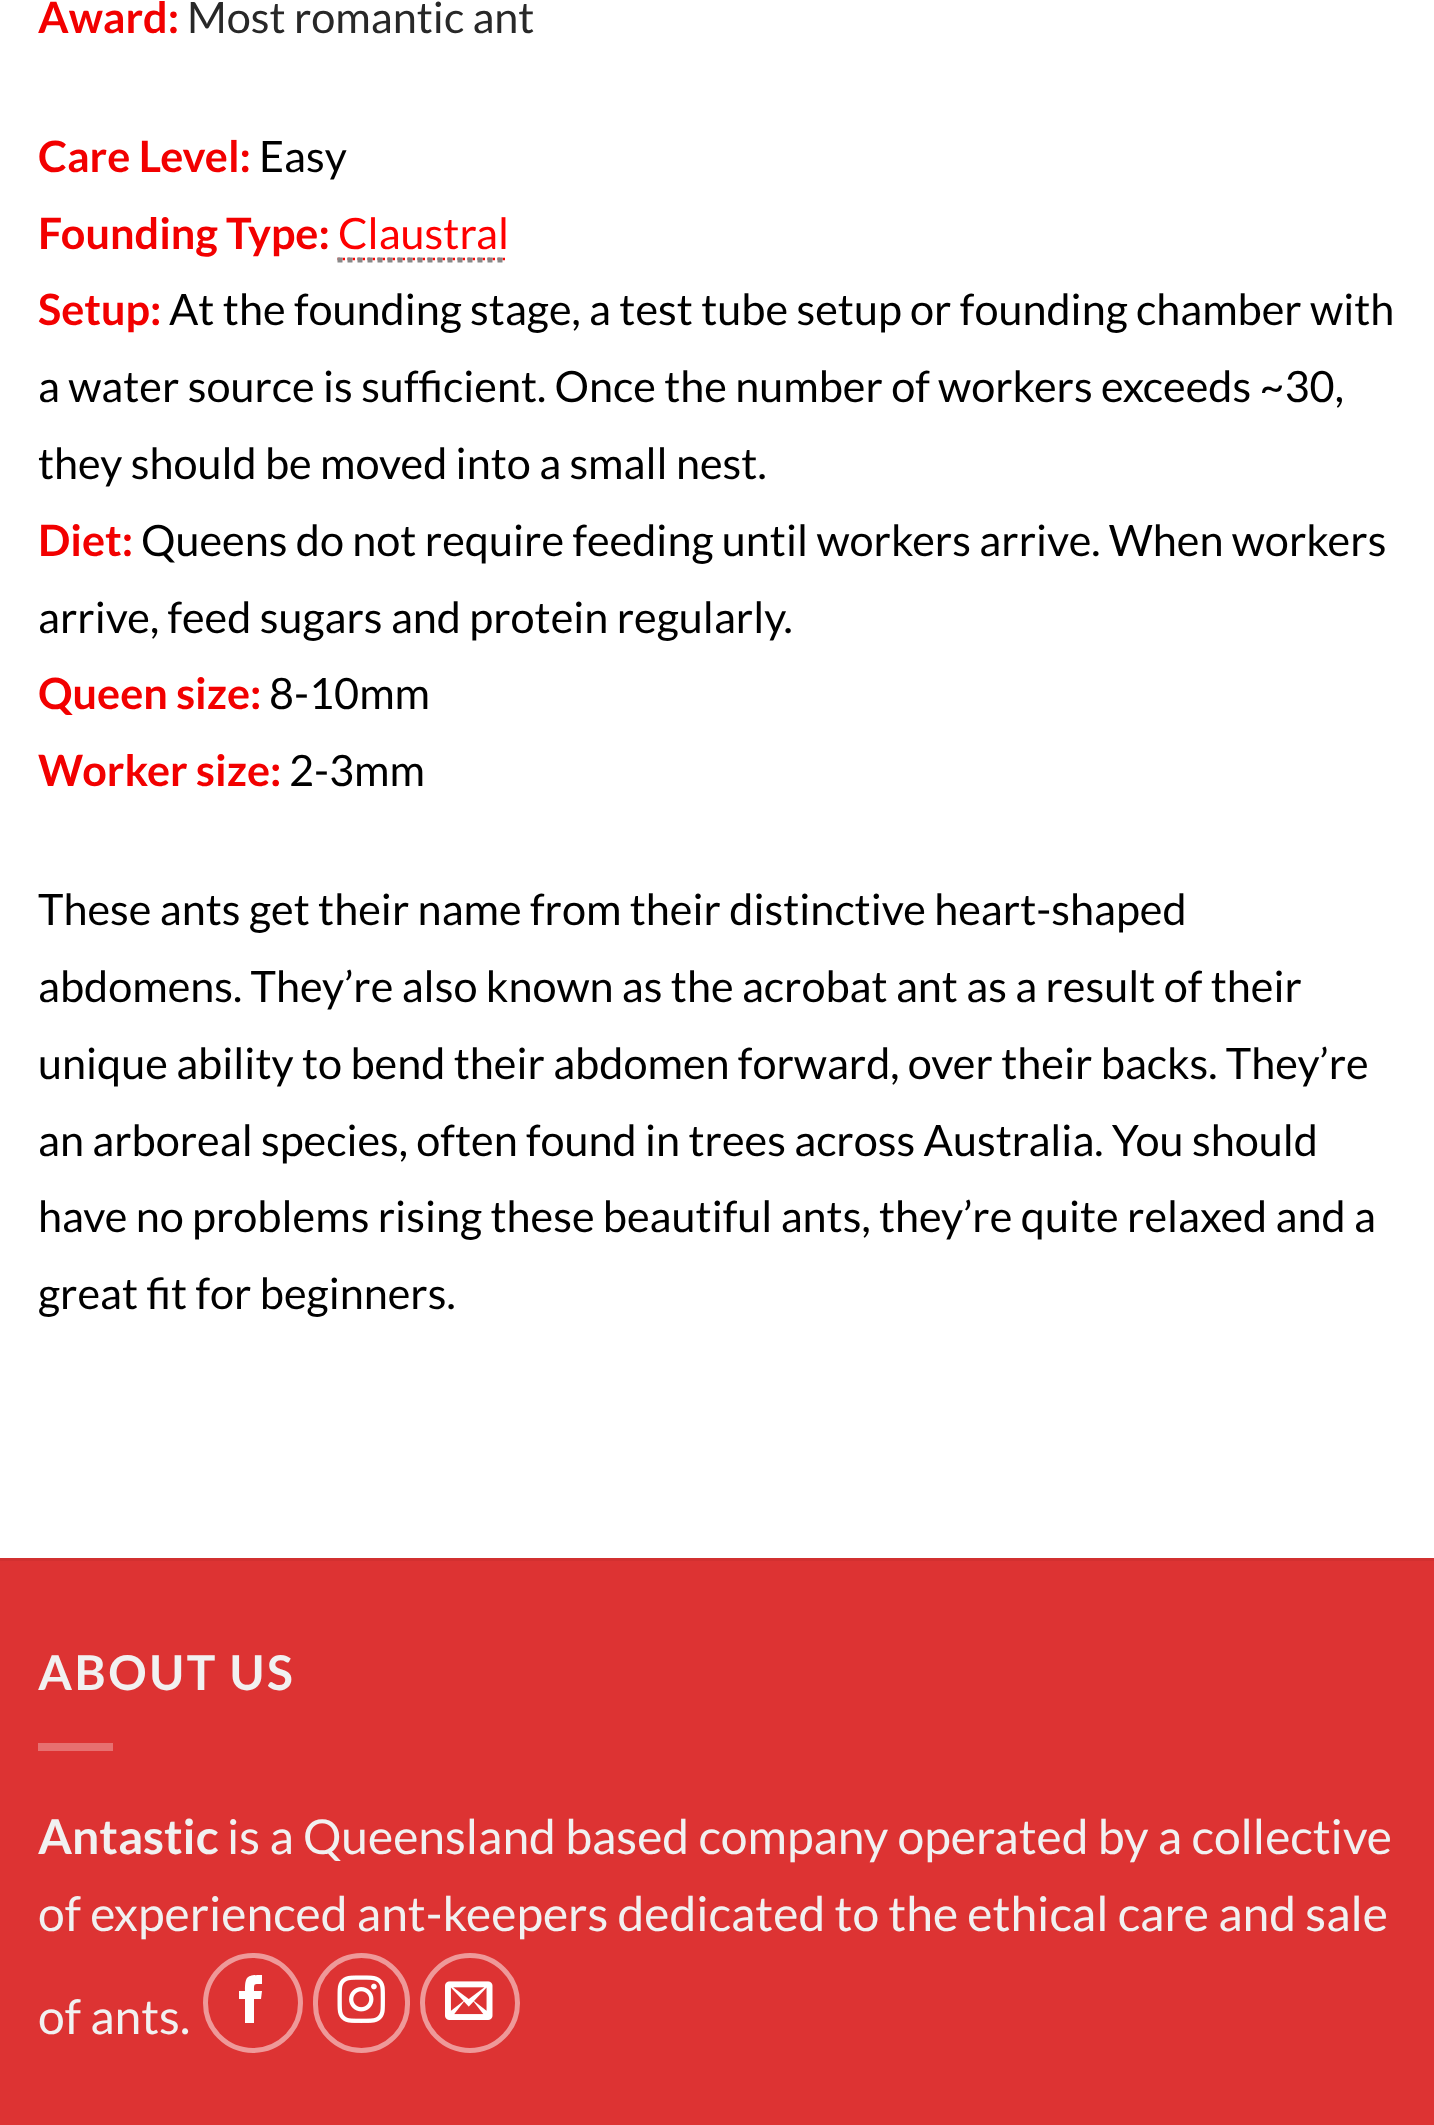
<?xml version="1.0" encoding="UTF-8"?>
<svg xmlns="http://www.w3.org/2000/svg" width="1434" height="2125">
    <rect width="100%" height="100%" fill="#FFFFFF"/>
    <text x="38" y="33" font-family="Lato" font-size="43.2" font-weight="700" fill="#F20000">Award:</text>
    <text x="187" y="33" font-family="Lato" font-size="43.2" fill="#282828">Most romantic ant</text>
    <text x="38" y="172" font-family="Lato" font-size="43.2" font-weight="700" fill="#F20000">Care Level:</text>
    <text x="259" y="172" font-family="Lato" font-size="43.2" fill="#000000">Easy</text>
    <text x="38" y="249" font-family="Lato" font-size="43.2" font-weight="700" fill="#F20000">Founding Type:</text>
    <text x="338" y="249" font-family="Lato" font-size="43.2" fill="#FF0000">Claustral</text>
    <path d="M 337.5 259 H 507.5" fill="none" stroke="#FF0000" stroke-width="2.5" stroke-dasharray="2.5 2.5"/>
    <path d="M 337.5 260 H 507.5" fill="none" stroke="#888888" stroke-width="5" stroke-dasharray="5 5"/>
    <text x="38" y="325" font-family="Lato" font-size="43.2" font-weight="700" fill="#F20000">Setup:</text>
    <text x="169" y="325" font-family="Lato" font-size="43.2" fill="#000000">At the founding stage, a test tube setup or founding chamber with</text>
    <text font-family="Lato" font-size="43.2" fill="#000000">
        <tspan x="38" y="402">a water source is sufficient. Once the number of workers exceeds ~30,</tspan>
        <tspan x="38" y="479">they should be moved into a small nest.</tspan>
    </text>
    <text x="38" y="556" font-family="Lato" font-size="43.2" font-weight="700" fill="#F20000">Diet:</text>
    <text x="141" y="556" font-family="Lato" font-size="43.2" fill="#000000">Queens do not require feeding until workers arrive. When workers</text>
    <text x="38" y="633" font-family="Lato" font-size="43.2" fill="#000000">arrive, feed sugars and protein regularly.</text>
    <text x="38" y="709" font-family="Lato" font-size="43.2" font-weight="700" fill="#F20000">Queen size:</text>
    <text x="269" y="709" font-family="Lato" font-size="43.2" fill="#000000">8-10mm</text>
    <text x="38" y="786" font-family="Lato" font-size="43.2" font-weight="700" fill="#F20000">Worker size:</text>
    <text x="289" y="786" font-family="Lato" font-size="43.2" fill="#000000">2-3mm</text>
    <text font-family="Lato" font-size="43.2" fill="#000000">
        <tspan x="38" y="925">These ants get their name from their distinctive heart-shaped</tspan>
        <tspan x="38" y="1002">abdomens. They’re also known as the acrobat ant as a result of their</tspan>
        <tspan x="38" y="1079">unique ability to bend their abdomen forward, over their backs. They’re</tspan>
        <tspan x="38" y="1156">an arboreal species, often found in trees across Australia. You should</tspan>
        <tspan x="38" y="1232">have no problems rising these beautiful ants, they’re quite relaxed and a</tspan>
        <tspan x="38" y="1309">great fit for beginners.</tspan>
    </text>
    <rect x="0" y="1561" width="1434" height="564" fill="#DD3333"/>
    <rect x="0" y="1558" width="1434" height="3" fill="#D23030"/>
    <text x="38" y="1690" font-family="Lato" font-size="48" font-weight="700" letter-spacing="2.5" fill="#F1F1F1">ABOUT US</text>
    <rect x="38" y="1743" width="75" height="8" fill="#E77070"/>
    <text x="38" y="1854" font-family="Lato" font-size="48" font-weight="700" fill="#F1F1F1">Antastic</text>
    <text x="227" y="1854" font-family="Lato" font-size="48" fill="#F1F1F1">is a Queensland based company operated by a collective</text>
    <text x="38" y="1931" font-family="Lato" font-size="48" fill="#F1F1F1">of experienced ant-keepers dedicated to the ethical care and sale</text>
    <text x="38" y="2034" font-family="Lato" font-size="48" fill="#F1F1F1">of ants.</text>
    <circle cx="253" cy="2003" r="47.5" fill="none" stroke="#EE9999" stroke-width="5"/>
    <path d="M 254 2023 H 245 V 1999 H 239 V 1991 H 245 C 245 1976 247 1975 262 1975 V 1984 C 254 1984 254 1983 254 1991 H 262 L 261 1999 H 254 Z" fill="#FFFFFF"/>
    <rect x="315.5" y="1955.5" width="92" height="95" rx="46" fill="none" stroke="#EE9999" stroke-width="5"/>
    <image x="337" y="1975" width="48" height="48" href="img_01.png"/>
    <circle cx="470" cy="2003" r="47.5" fill="none" stroke="#EE9999" stroke-width="5"/>
    <image x="445" y="1981" width="48" height="39" href="img_02.png"/>
</svg>
